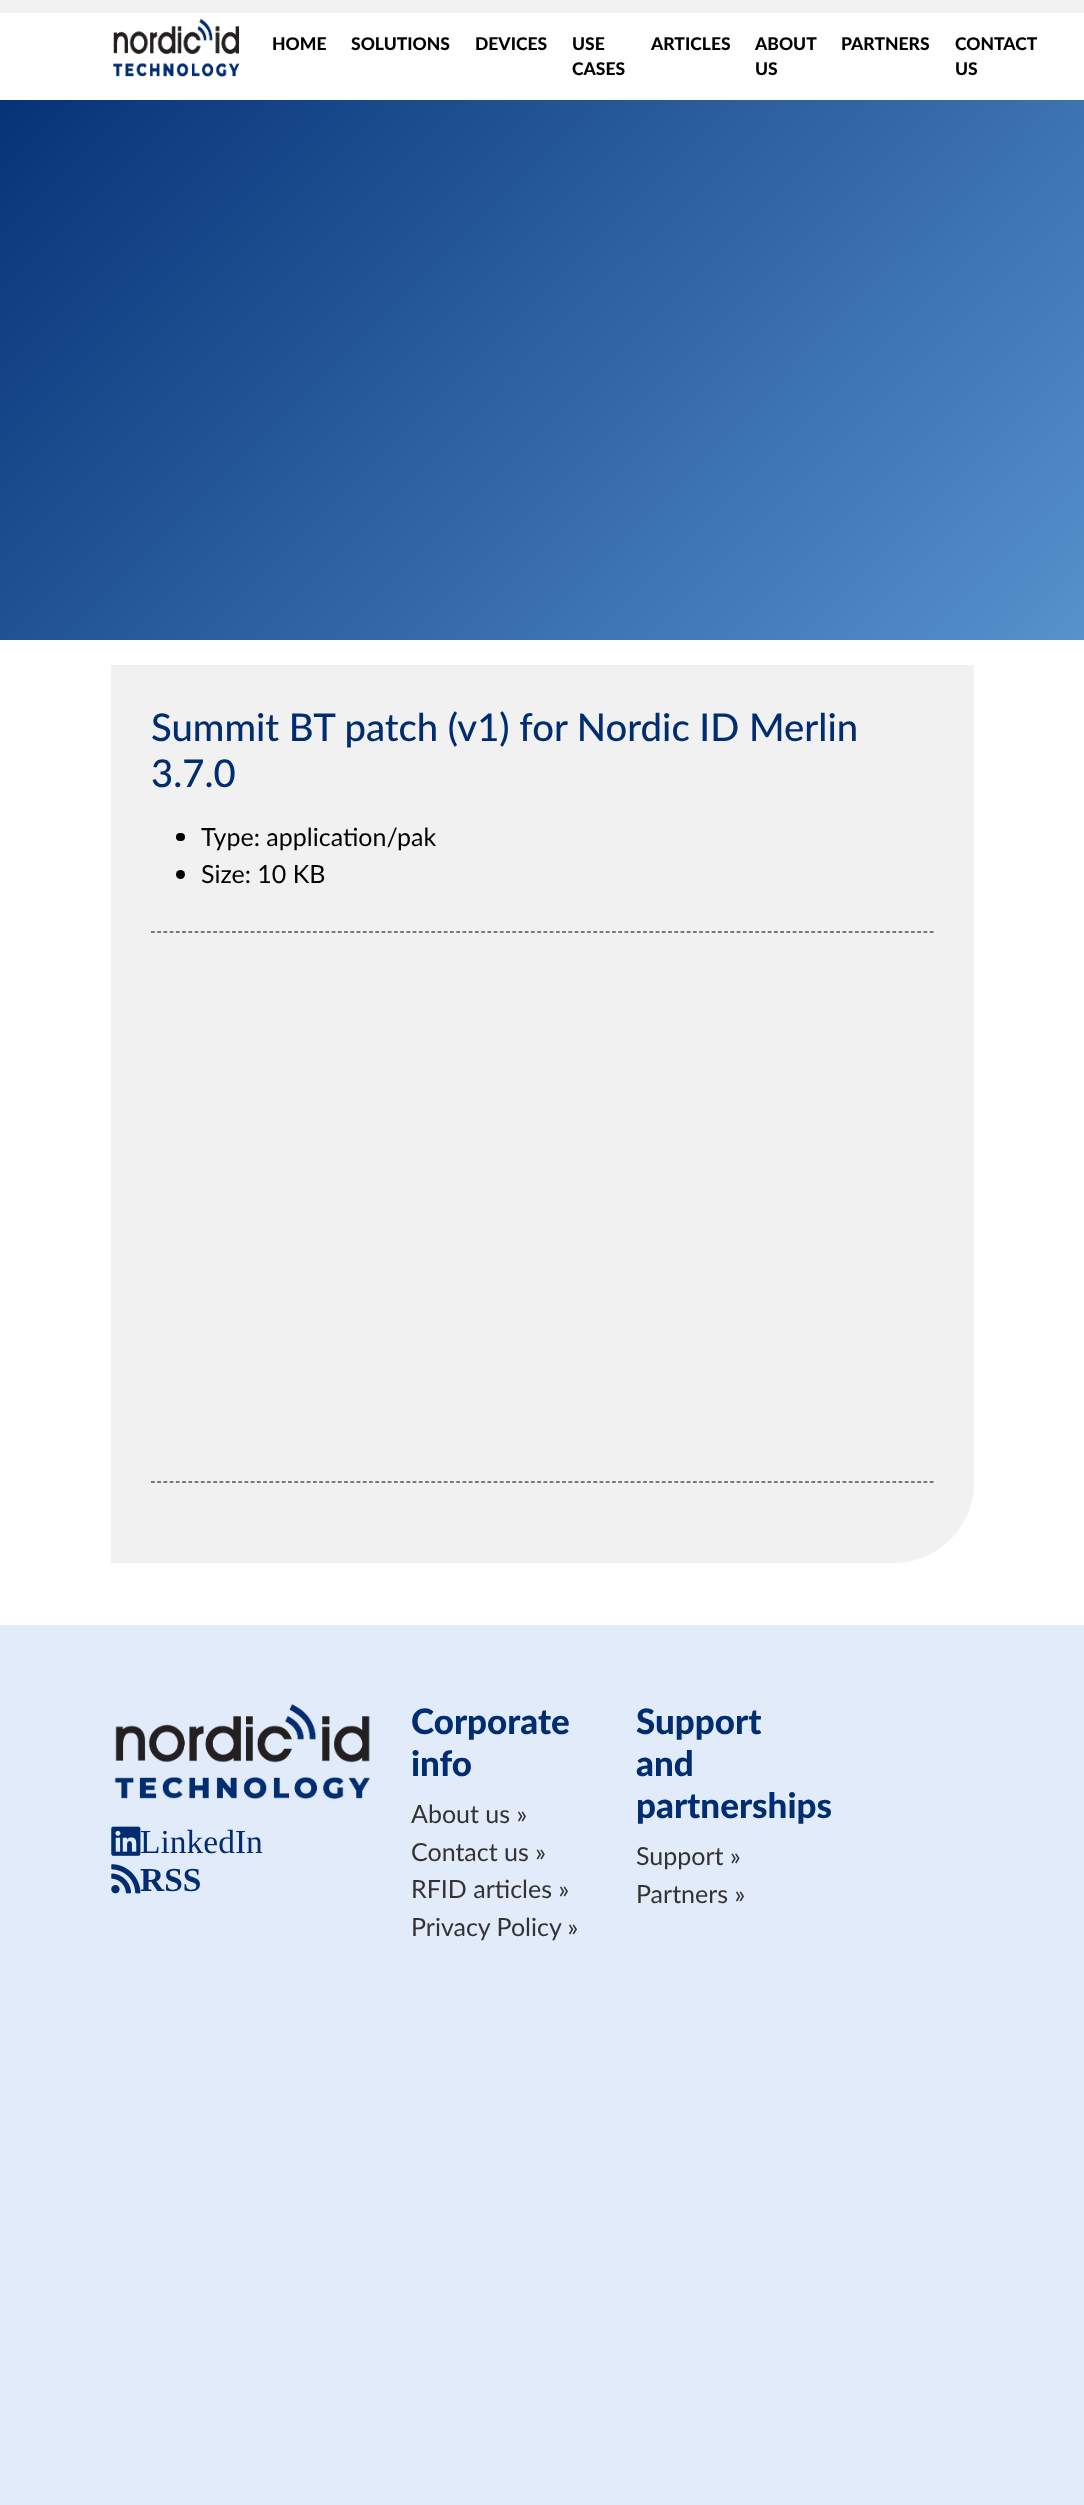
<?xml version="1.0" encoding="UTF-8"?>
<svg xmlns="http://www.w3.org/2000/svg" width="1084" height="2505">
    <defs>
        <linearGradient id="g1" gradientUnits="userSpaceOnUse" x1="111" y1="-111" x2="974" y2="751"><stop offset="0" stop-color="#002D72"/><stop offset="1" stop-color="#5792CD"/></linearGradient>
    </defs>
    <rect width="100%" height="100%" fill="#FFFFFF"/>
    <rect x="0" y="0" width="1084" height="13" fill="#F2F2F2"/>
    <image x="113" y="18" width="127" height="59" href="img_01.png"/>
    <text x="272" y="50" font-family="Lato" font-size="17.5" font-weight="900" fill="#000000">HOME</text>
    <text x="351" y="50" font-family="Lato" font-size="17.5" font-weight="900" fill="#000000">SOLUTIONS</text>
    <text x="475" y="50" font-family="Lato" font-size="17.5" font-weight="900" fill="#000000">DEVICES</text>
    <text font-family="Lato" font-size="17.5" font-weight="900" fill="#000000">
        <tspan x="572" y="50">USE</tspan>
        <tspan x="572" y="75">CASES</tspan>
    </text>
    <text x="651" y="50" font-family="Lato" font-size="17.5" font-weight="900" fill="#000000">ARTICLES</text>
    <text font-family="Lato" font-size="17.5" font-weight="900" fill="#000000">
        <tspan x="755" y="50">ABOUT</tspan>
        <tspan x="755" y="75">US</tspan>
    </text>
    <text x="841" y="50" font-family="Lato" font-size="17.5" font-weight="900" fill="#000000">PARTNERS</text>
    <text font-family="Lato" font-size="17.5" font-weight="900" fill="#000000">
        <tspan x="955" y="50">CONTACT</tspan>
        <tspan x="955" y="75">US</tspan>
    </text>
    <rect x="0" y="100" width="1084" height="540" fill="url(#g1)"/>
    <path d="M 111 665 H 974 V 1483 C 974 1527 938 1563 894 1563 H 111 Z" fill="#F1F1F1"/>
    <text font-family="Lato" font-size="38.25" font-weight="500" fill="#002D72">
        <tspan x="151" y="741">Summit BT patch (v1) for Nordic ID Merlin</tspan>
        <tspan x="151" y="787">3.7.0</tspan>
    </text>
    <rect x="176" y="833" width="9" height="8" rx="4" fill="#000000"/>
    <text x="201" y="846" font-family="Lato" font-size="25" fill="#000000">Type: application/pak</text>
    <circle cx="180.5" cy="874.5" r="4.5" fill="#000000"/>
    <text x="201" y="883" font-family="Lato" font-size="25" fill="#000000">Size: 10 KB</text>
    <path d="M 151 932 H 934" fill="none" stroke="#000000" stroke-width="1.2" stroke-dasharray="3.75 2.48"/>
    <path d="M 151 1482 H 934" fill="none" stroke="#000000" stroke-width="1.2" stroke-dasharray="3.75 2.48"/>
    <rect x="0" y="1625" width="1084" height="880" fill="#E2EBF9"/>
    <image x="114" y="1704" width="257" height="96" href="img_02.png"/>
    <image x="111" y="1826" width="30" height="30" href="img_03.png"/>
    <text x="140" y="1853" font-family="Liberation Serif" font-size="33.5" fill="#002D72">LinkedIn</text>
    <image x="111" y="1864" width="30" height="30" href="img_04.png"/>
    <text x="140" y="1891" font-family="Liberation Serif" font-size="33.5" font-weight="700" fill="#002D72">RSS</text>
    <text font-family="Lato" font-size="35" font-weight="900" fill="#002D72">
        <tspan x="411" y="1734">Corporate</tspan>
        <tspan x="411" y="1776">info</tspan>
    </text>
    <text font-family="Lato" font-size="25" fill="#333333">
        <tspan x="411" y="1823">About us »</tspan>
        <tspan x="411" y="1861">Contact us »</tspan>
        <tspan x="411" y="1898">RFID articles »</tspan>
        <tspan x="411" y="1936">Privacy Policy »</tspan>
    </text>
    <text font-family="Lato" font-size="35" font-weight="900" fill="#002D72">
        <tspan x="636" y="1734">Support</tspan>
        <tspan x="636" y="1776">and</tspan>
        <tspan x="636" y="1818">partnerships</tspan>
    </text>
    <text font-family="Lato" font-size="25" fill="#333333">
        <tspan x="636" y="1865">Support »</tspan>
        <tspan x="636" y="1903">Partners »</tspan>
    </text>
</svg>
